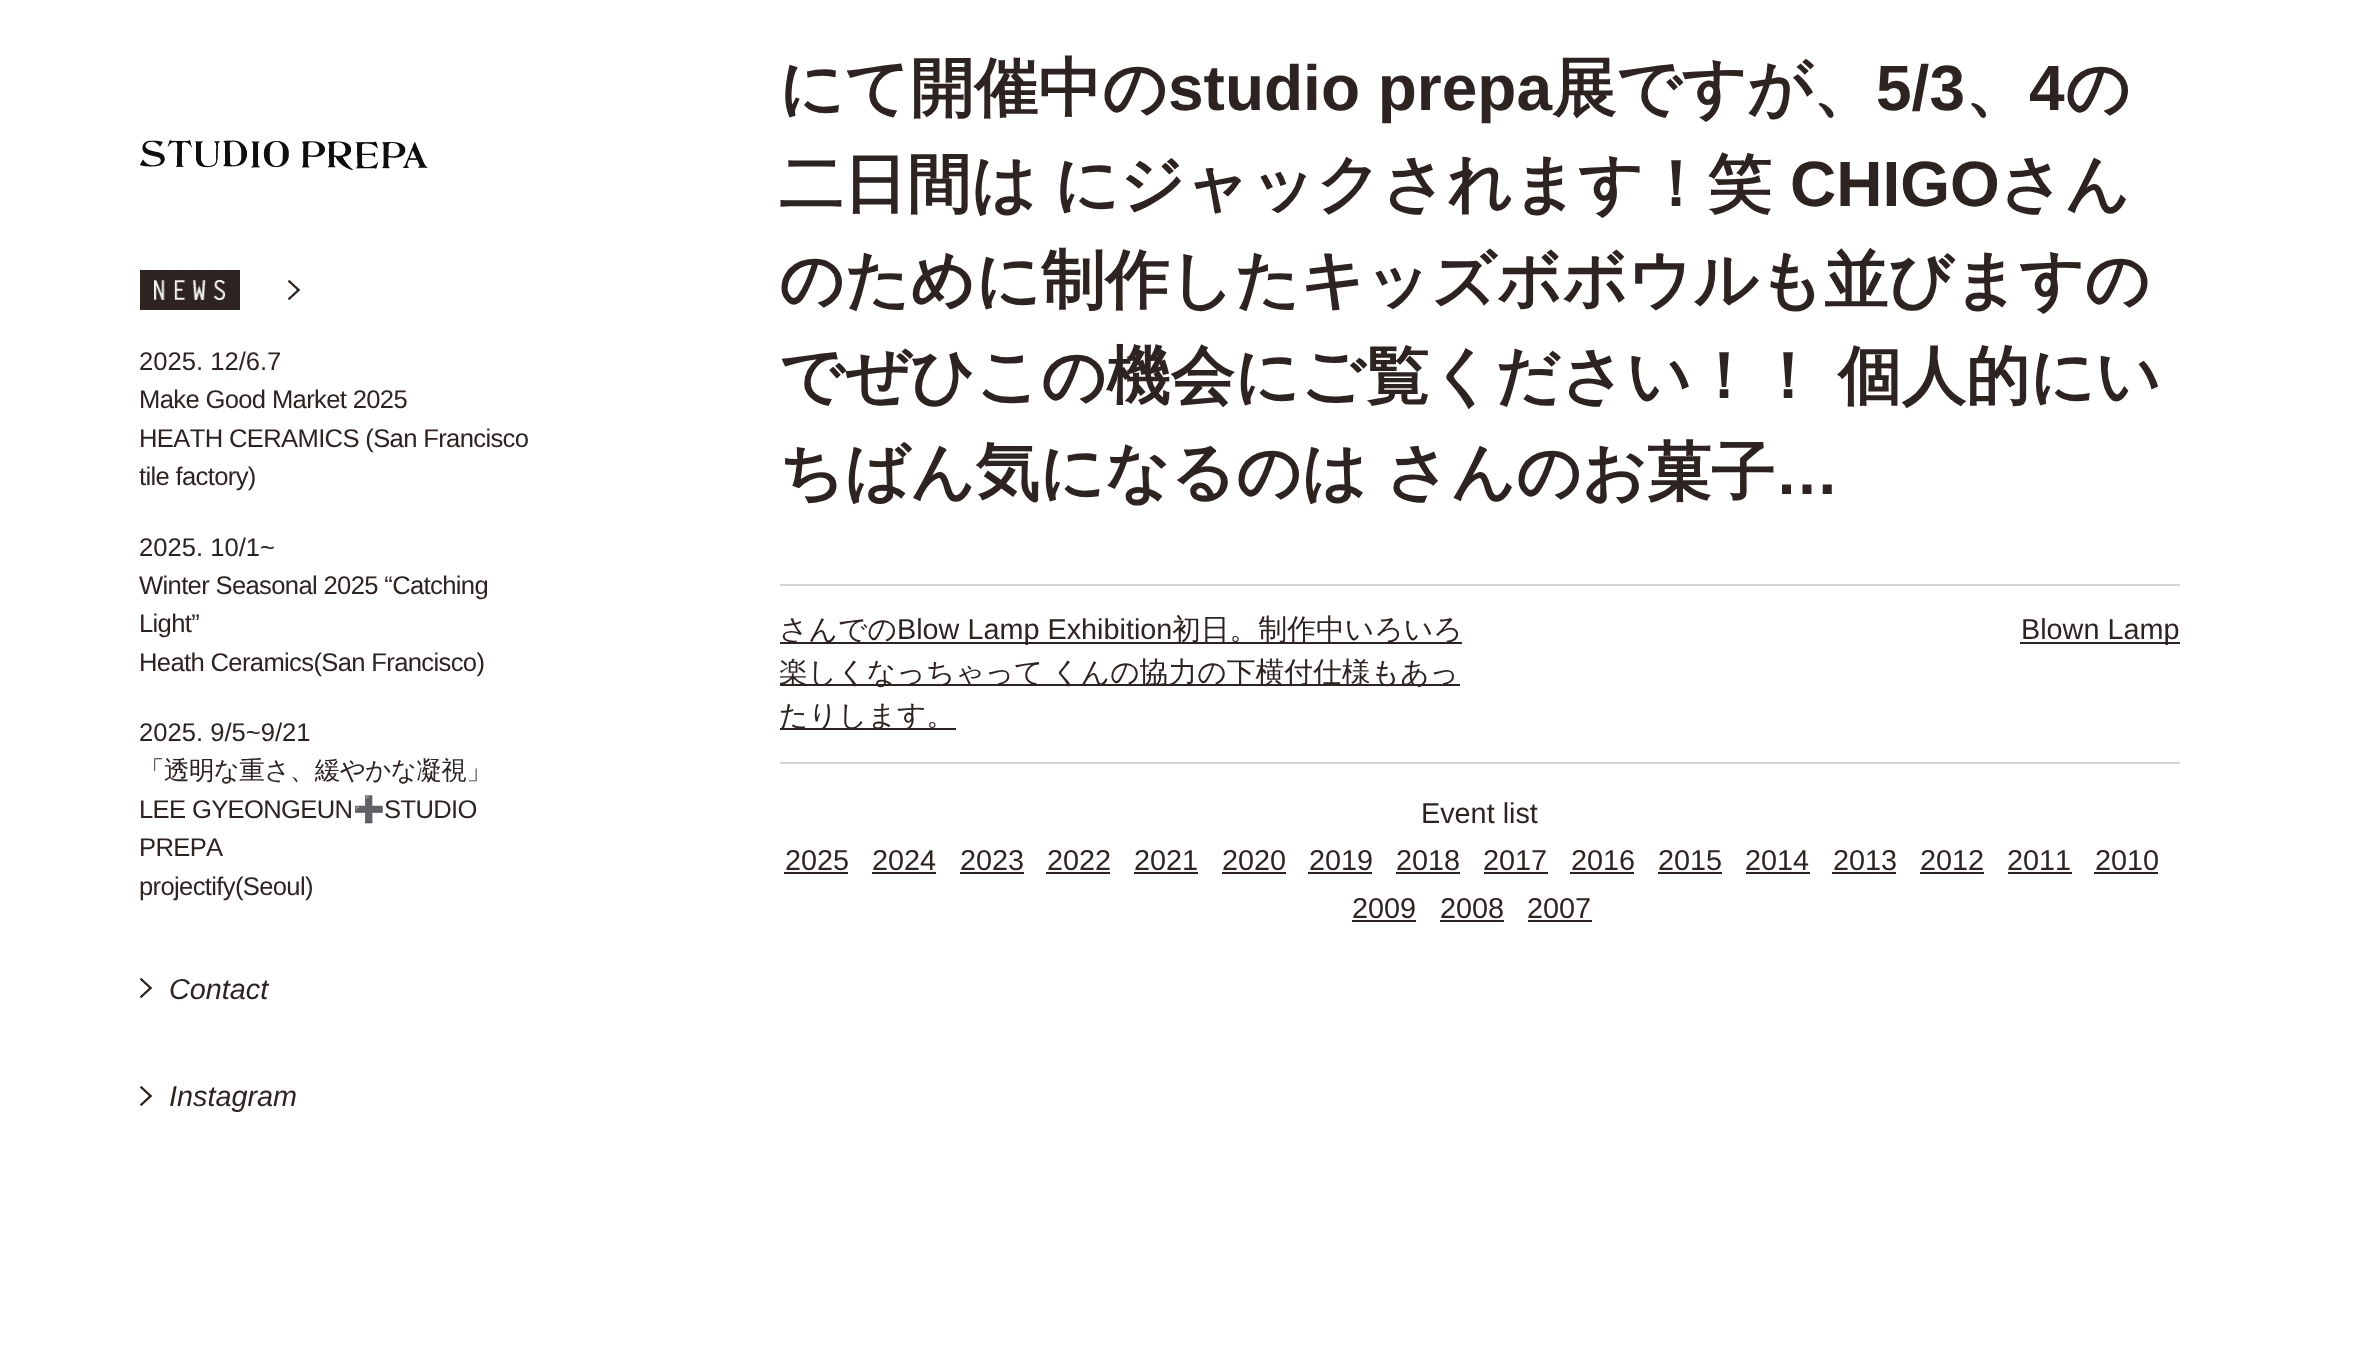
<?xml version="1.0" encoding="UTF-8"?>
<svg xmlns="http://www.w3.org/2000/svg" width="2358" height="1365">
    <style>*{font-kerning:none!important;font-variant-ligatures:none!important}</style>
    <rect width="100%" height="100%" fill="#FFFFFF"/>
    <image x="140" y="140" width="288" height="30" href="img_01.png"/>
    <rect x="140" y="270" width="100" height="40" fill="#2D2321"/>
    <image x="154" y="280" width="72" height="20" href="img_02.png"/>
    <image x="288" y="280" width="13" height="20" href="img_03.png"/>
    <text x="139" y="370" font-family="Liberation Sans" font-size="25.6" fill="#2D2321">2025. 12/6.7</text>
    <text font-family="Liberation Sans" font-size="25.6" letter-spacing="-0.65" fill="#2D2321">
        <tspan x="139" y="408">Make Good Market 2025</tspan>
        <tspan x="139" y="447">HEATH CERAMICS (San Francisco</tspan>
        <tspan x="139" y="485">tile factory)</tspan>
    </text>
    <text x="139" y="556" font-family="Liberation Sans" font-size="25.6" fill="#2D2321">2025. 10/1~</text>
    <text font-family="Liberation Sans" font-size="25.6" letter-spacing="-0.65" fill="#2D2321">
        <tspan x="139" y="594">Winter Seasonal 2025 “Catching</tspan>
        <tspan x="139" y="632">Light”</tspan>
        <tspan x="139" y="671">Heath Ceramics(San Francisco)</tspan>
    </text>
    <text x="139" y="741" font-family="Liberation Sans" font-size="25.6" fill="#2D2321">2025. 9/5~9/21</text>
    <text x="139" y="779" font-family="WenQuanYi Zen Hei" font-size="25.6" font-weight="500" letter-spacing="-0.65" fill="#2D2321">「透明な重さ、緩やかな凝視」</text>
    <text x="139" y="818" font-family="Liberation Sans" font-size="25.6" letter-spacing="-0.65" fill="#2D2321">LEE GYEONGEUN</text>
    <text x="353" y="818" font-family="Noto Color Emoji" font-size="25.6" letter-spacing="-0.65" fill="#2D2321">➕</text>
    <text x="384" y="818" font-family="Liberation Sans" font-size="25.6" letter-spacing="-0.65" fill="#2D2321">STUDIO</text>
    <text font-family="Liberation Sans" font-size="25.6" letter-spacing="-0.65" fill="#2D2321">
        <tspan x="139" y="856">PREPA</tspan>
        <tspan x="139" y="895">projectify(Seoul)</tspan>
    </text>
    <image x="140" y="978" width="13" height="20" href="img_03.png"/>
    <text x="169" y="999" font-family="Liberation Sans" font-size="28.8" font-style="italic" fill="#2D2321">Contact</text>
    <image x="140" y="1086" width="13" height="20" href="img_03.png"/>
    <text x="169" y="1106" font-family="Liberation Sans" font-size="28.8" font-style="italic" fill="#2D2321">Instagram</text>
    <text x="779" y="110" font-family="WenQuanYi Zen Hei" font-size="64" font-weight="700" fill="#2D2321">にて開催中の</text>
    <text x="1168" y="110" font-family="Liberation Sans" font-size="64" font-weight="700" fill="#2D2321">studio prepa</text>
    <text x="1552" y="110" font-family="WenQuanYi Zen Hei" font-size="64" font-weight="700" fill="#2D2321">展ですが、</text>
    <text x="1876" y="110" font-family="Liberation Sans" font-size="64" font-weight="700" fill="#2D2321">5/3</text>
    <text x="1965" y="110" font-family="WenQuanYi Zen Hei" font-size="64" font-weight="700" fill="#2D2321">、</text>
    <text x="2029" y="110" font-family="Liberation Sans" font-size="64" font-weight="700" fill="#2D2321">4</text>
    <text x="2065" y="110" font-family="WenQuanYi Zen Hei" font-size="64" font-weight="700" fill="#2D2321">の</text>
    <text x="779" y="206" font-family="WenQuanYi Zen Hei" font-size="64" font-weight="700" fill="#2D2321">二日間は</text>
    <text x="1054" y="206" font-family="WenQuanYi Zen Hei" font-size="64" font-weight="700" fill="#2D2321">にジャックされます！笑</text>
    <text x="1790" y="206" font-family="Liberation Sans" font-size="64" font-weight="700" fill="#2D2321">CHIGO</text>
    <text x="1999" y="206" font-family="WenQuanYi Zen Hei" font-size="64" font-weight="700" fill="#2D2321">さん</text>
    <text font-family="WenQuanYi Zen Hei" font-size="64" font-weight="700" fill="#2D2321">
        <tspan x="779" y="302">のために制作したキッズボボウルも並びますの</tspan>
        <tspan x="779" y="398" word-spacing="-1">でぜひこの機会にご覧ください！！ 個人的にい</tspan>
        <tspan x="779" y="494">ちばん気になるのは</tspan>
    </text>
    <text x="1385" y="494" font-family="WenQuanYi Zen Hei" font-size="64" font-weight="700" fill="#2D2321">さんのお菓子</text>
    <text x="1775" y="494" font-family="Liberation Sans" font-size="64" font-weight="700" fill="#2D2321">…</text>
    <rect x="780" y="584" width="1400" height="2" fill="#D5D3D3"/>
    <rect x="780" y="762" width="1400" height="2" fill="#D5D3D3"/>
    <rect x="780" y="642" width="682" height="2" fill="#2D2321"/>
    <text x="779" y="639" font-family="WenQuanYi Zen Hei" font-size="28.8" font-weight="500" fill="#2D2321">さんでの</text>
    <text x="897" y="639" font-family="Liberation Sans" font-size="28.8" fill="#2D2321">Blow Lamp Exhibition</text>
    <text x="1172" y="639" font-family="WenQuanYi Zen Hei" font-size="28.8" font-weight="500" fill="#2D2321">初日。制作中いろいろ</text>
    <rect x="780" y="684" width="680" height="2" fill="#2D2321"/>
    <text x="779" y="682" word-spacing="-1" font-family="WenQuanYi Zen Hei" font-size="28.8" font-weight="500" fill="#2D2321">楽しくなっちゃって くんの協力の下横付仕様もあっ</text>
    <rect x="780" y="728" width="176" height="2" fill="#2D2321"/>
    <text x="779" y="725" font-family="WenQuanYi Zen Hei" font-size="28.8" font-weight="500" fill="#2D2321">たりします。</text>
    <rect x="2020" y="642" width="160" height="2" fill="#2D2321"/>
    <text x="2021" y="639" font-family="Liberation Sans" font-size="28.8" fill="#2D2321">Blown Lamp</text>
    <text x="1421" y="823" font-family="Liberation Sans" font-size="28.8" fill="#2D2321">Event list</text>
    <text x="785" y="870" font-family="Liberation Sans" font-size="28.8" fill="#2D2321">2025</text>
    <rect x="784" y="872" width="64" height="2" fill="#2D2321"/>
    <text x="872" y="870" font-family="Liberation Sans" font-size="28.8" fill="#2D2321">2024</text>
    <rect x="872" y="872" width="64" height="2" fill="#2D2321"/>
    <text x="960" y="870" font-family="Liberation Sans" font-size="28.8" fill="#2D2321">2023</text>
    <rect x="960" y="872" width="64" height="2" fill="#2D2321"/>
    <text x="1047" y="870" font-family="Liberation Sans" font-size="28.8" fill="#2D2321">2022</text>
    <rect x="1046" y="872" width="64" height="2" fill="#2D2321"/>
    <text x="1134" y="870" font-family="Liberation Sans" font-size="28.8" fill="#2D2321">2021</text>
    <rect x="1134" y="872" width="64" height="2" fill="#2D2321"/>
    <text x="1222" y="870" font-family="Liberation Sans" font-size="28.8" fill="#2D2321">2020</text>
    <rect x="1222" y="872" width="64" height="2" fill="#2D2321"/>
    <text x="1309" y="870" font-family="Liberation Sans" font-size="28.8" fill="#2D2321">2019</text>
    <rect x="1308" y="872" width="64" height="2" fill="#2D2321"/>
    <text x="1396" y="870" font-family="Liberation Sans" font-size="28.8" fill="#2D2321">2018</text>
    <rect x="1396" y="872" width="64" height="2" fill="#2D2321"/>
    <text x="1483" y="870" font-family="Liberation Sans" font-size="28.8" fill="#2D2321">2017</text>
    <rect x="1484" y="872" width="64" height="2" fill="#2D2321"/>
    <text x="1571" y="870" font-family="Liberation Sans" font-size="28.8" fill="#2D2321">2016</text>
    <rect x="1570" y="872" width="64" height="2" fill="#2D2321"/>
    <text x="1658" y="870" font-family="Liberation Sans" font-size="28.8" fill="#2D2321">2015</text>
    <rect x="1658" y="872" width="64" height="2" fill="#2D2321"/>
    <text x="1745" y="870" font-family="Liberation Sans" font-size="28.8" fill="#2D2321">2014</text>
    <rect x="1746" y="872" width="64" height="2" fill="#2D2321"/>
    <text x="1833" y="870" font-family="Liberation Sans" font-size="28.8" fill="#2D2321">2013</text>
    <rect x="1832" y="872" width="64" height="2" fill="#2D2321"/>
    <text x="1920" y="870" font-family="Liberation Sans" font-size="28.8" fill="#2D2321">2012</text>
    <rect x="1920" y="872" width="64" height="2" fill="#2D2321"/>
    <text x="2007" y="870" font-family="Liberation Sans" font-size="28.8" fill="#2D2321">2011</text>
    <rect x="2008" y="872" width="64" height="2" fill="#2D2321"/>
    <text x="2095" y="870" font-family="Liberation Sans" font-size="28.8" fill="#2D2321">2010</text>
    <rect x="2094" y="872" width="64" height="2" fill="#2D2321"/>
    <text x="1352" y="918" font-family="Liberation Sans" font-size="28.8" fill="#2D2321">2009</text>
    <rect x="1352" y="920" width="64" height="2" fill="#2D2321"/>
    <text x="1440" y="918" font-family="Liberation Sans" font-size="28.8" fill="#2D2321">2008</text>
    <rect x="1440" y="920" width="64" height="2" fill="#2D2321"/>
    <text x="1527" y="918" font-family="Liberation Sans" font-size="28.8" fill="#2D2321">2007</text>
    <rect x="1528" y="920" width="64" height="2" fill="#2D2321"/>
</svg>
